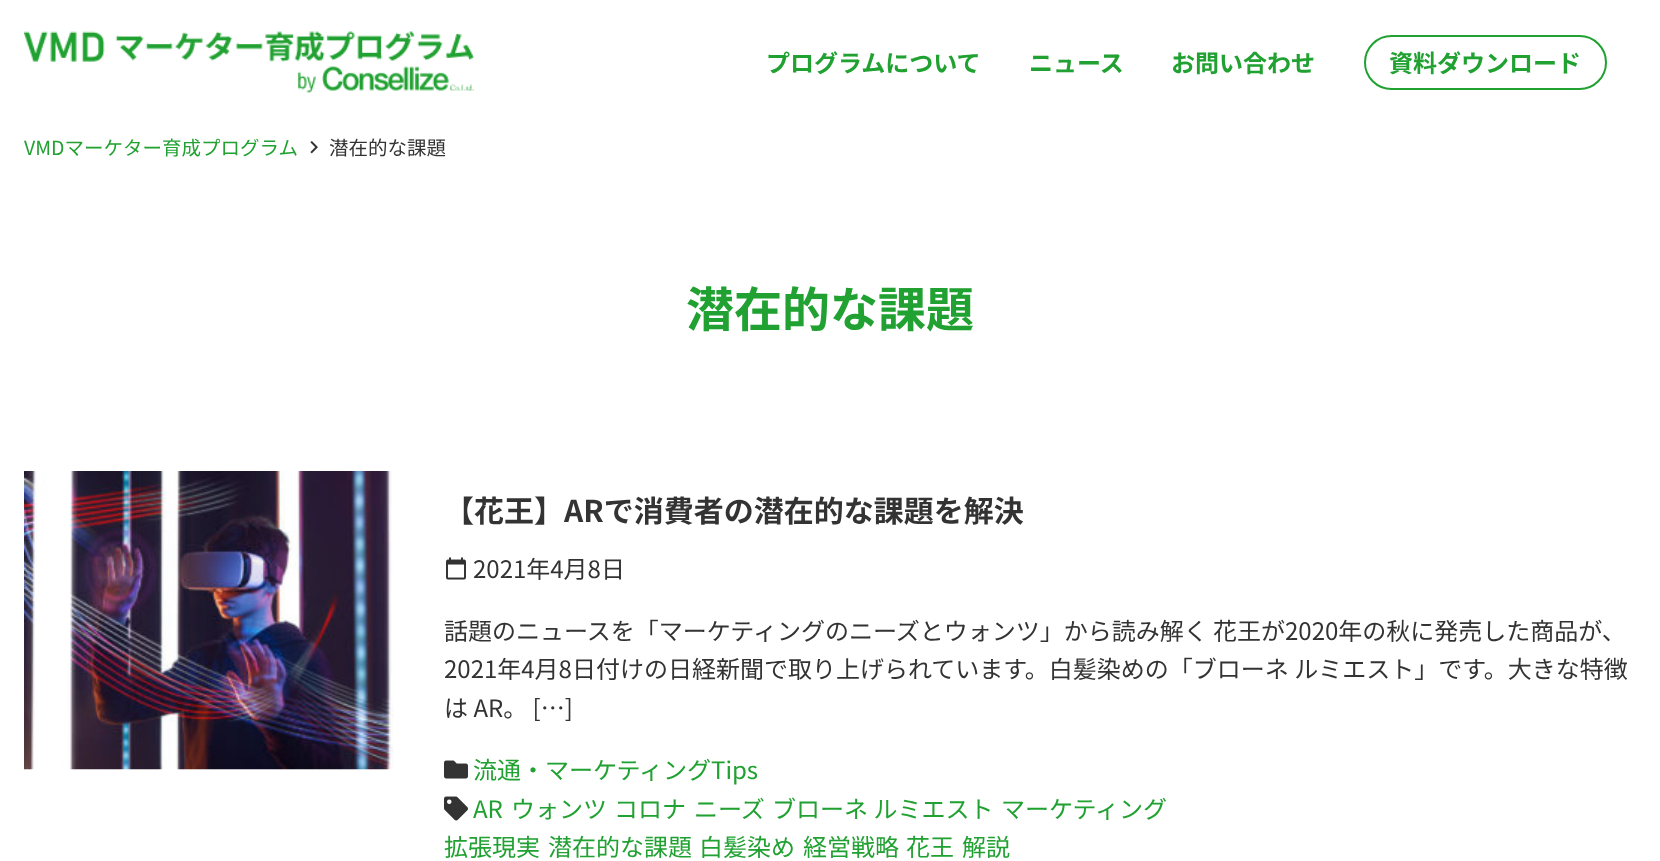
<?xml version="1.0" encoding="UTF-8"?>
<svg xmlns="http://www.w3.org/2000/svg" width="1660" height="861">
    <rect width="100%" height="100%" fill="#FFFFFF"/>
    <image x="24" y="31" width="450" height="62" href="img_01.png"/>
    <text x="766" y="72" font-family="Noto Sans JP" font-size="24" font-weight="700" fill="#20A131">プログラムについて</text>
    <text x="1029" y="72" font-family="Noto Sans JP" font-size="24" font-weight="700" fill="#20A131">ニュース</text>
    <text x="1171" y="72" font-family="Noto Sans JP" font-size="24" font-weight="700" fill="#20A131">お問い合わせ</text>
    <rect x="1365" y="36" width="241" height="53" rx="26.5" fill="none" stroke="#20A131" stroke-width="2"/>
    <text x="1389" y="72" font-family="Noto Sans JP" font-size="24" font-weight="700" fill="#20A131">資料ダウンロード</text>
    <text x="24" y="155" font-family="Noto Sans JP" font-size="19.5" fill="#20A131">VMDマーケター育成プログラム</text>
    <image x="310" y="141" width="8" height="13" href="img_02.png"/>
    <text x="329" y="155" font-family="Noto Sans JP" font-size="19.5" fill="#333333">潜在的な課題</text>
    <text x="686" y="327" font-family="Noto Sans JP" font-size="48" font-weight="700" fill="#20A131">潜在的な課題</text>
    <image x="24" y="471" width="370" height="299" href="img_03.png"/>
    <text x="444" y="522" font-family="Noto Sans JP" font-size="30" font-weight="700" fill="#333333">【花王】ARで消費者の潜在的な課題を解決</text>
    <image x="446" y="557" width="20" height="23" href="img_04.png"/>
    <text x="473" y="578" font-family="Noto Sans JP" font-size="24" fill="#333333">2021年4月8日</text>
    <text font-family="Noto Sans JP" font-size="24" fill="#333333">
        <tspan x="444" y="640">話題のニュースを「マーケティングのニーズとウォンツ」から読み解く 花王が2020年の秋に発売した商品が、</tspan>
        <tspan x="444" y="678">2021年4月8日付けの日経新聞で取り上げられています。白髪染めの「ブローネ ルミエスト」です。大きな特徴</tspan>
        <tspan x="444" y="717">は AR。 […]</tspan>
    </text>
    <image x="444" y="760" width="24" height="19" href="img_05.png"/>
    <text x="473" y="779" font-family="Noto Sans JP" font-size="24" fill="#20A131">流通・マーケティングTips</text>
    <image x="444" y="796" width="24" height="25" href="img_06.png"/>
    <text x="473" y="818" font-family="Noto Sans JP" font-size="24" fill="#20A131">AR</text>
    <text x="511" y="818" font-family="Noto Sans JP" font-size="24" fill="#20A131">ウォンツ</text>
    <text x="614" y="818" font-family="Noto Sans JP" font-size="24" fill="#20A131">コロナ</text>
    <text x="694" y="818" font-family="Noto Sans JP" font-size="24" fill="#20A131">ニーズ</text>
    <text x="772" y="818" font-family="Noto Sans JP" font-size="24" fill="#20A131">ブローネ ルミエスト</text>
    <text x="1001" y="818" font-family="Noto Sans JP" font-size="24" fill="#20A131">マーケティング</text>
    <text x="444" y="856" font-family="Noto Sans JP" font-size="24" fill="#20A131">拡張現実</text>
    <text x="548" y="856" font-family="Noto Sans JP" font-size="24" fill="#20A131">潜在的な課題</text>
    <text x="699" y="856" font-family="Noto Sans JP" font-size="24" fill="#20A131">白髪染め</text>
    <text x="803" y="856" font-family="Noto Sans JP" font-size="24" fill="#20A131">経営戦略</text>
    <text x="906" y="856" font-family="Noto Sans JP" font-size="24" fill="#20A131">花王</text>
    <text x="962" y="856" font-family="Noto Sans JP" font-size="24" fill="#20A131">解説</text>
</svg>
